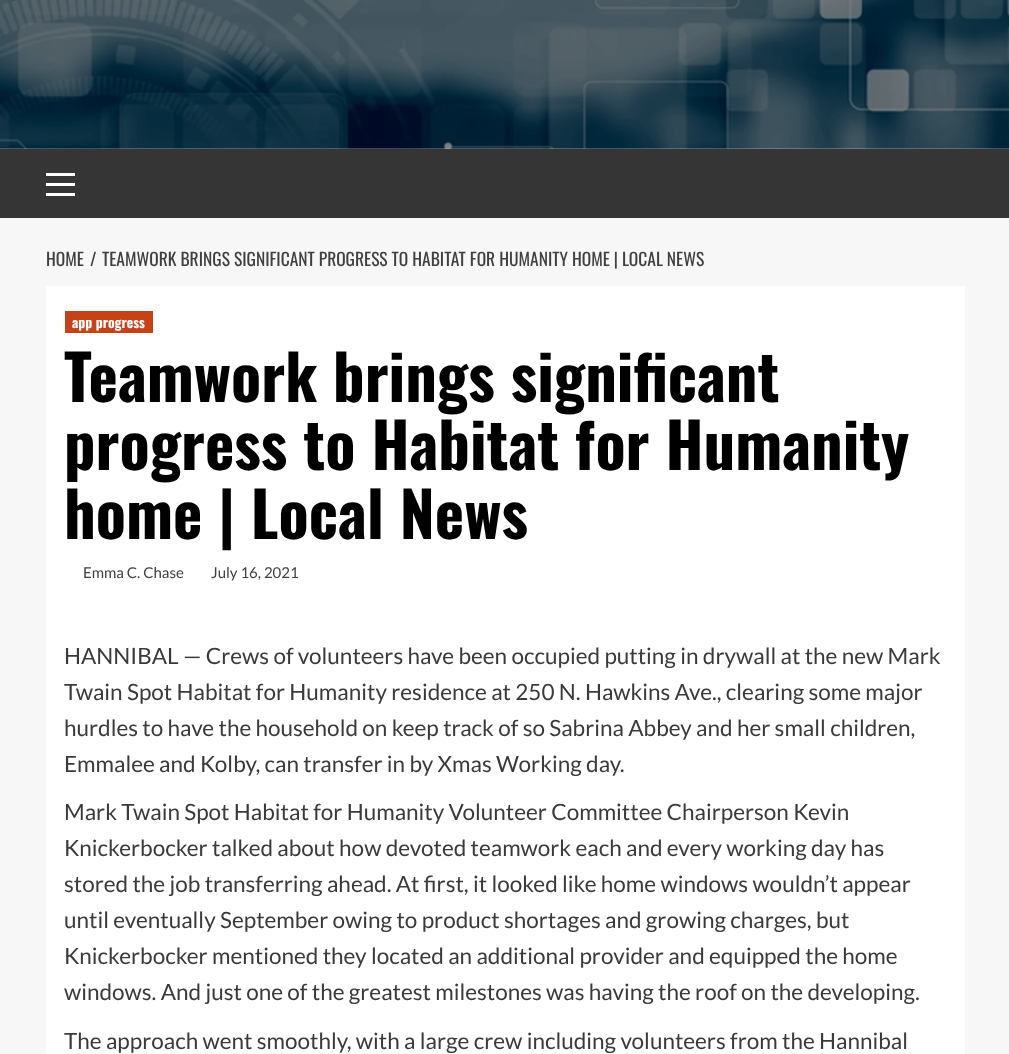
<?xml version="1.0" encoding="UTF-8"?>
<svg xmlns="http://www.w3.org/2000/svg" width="1009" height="1054">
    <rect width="100%" height="100%" fill="#F7F7F7"/>
    <image x="0" y="0" width="1009" height="149" href="img_01.png"/>
    <rect x="0" y="149" width="1009" height="69" fill="#353535"/>
    <rect x="46" y="183" width="29" height="3" fill="#FFFFFF"/>
    <rect x="46" y="173" width="29" height="3" fill="#FFFFFF"/>
    <rect x="46" y="193" width="29" height="3" fill="#FFFFFF"/>
    <text x="46" y="266" font-family="Oswald" font-size="17.5" fill="#404040">HOME</text>
    <text x="90" y="266" font-family="Oswald" font-size="17.5" fill="#404040">/</text>
    <text x="102" y="266" font-family="Oswald" font-size="17.5" fill="#404040">TEAMWORK BRINGS SIGNIFICANT PROGRESS TO HABITAT FOR HUMANITY HOME | LOCAL NEWS</text>
    <rect x="46" y="286" width="919" height="768" fill="#FFFFFF"/>
    <rect x="65" y="311" width="88" height="22" fill="#C44318"/>
    <text x="72" y="328" font-family="Oswald" font-size="13.75" font-weight="700" fill="#FFFFFF">app progress</text>
    <text font-family="Oswald" font-size="62.5" font-weight="700" fill="#000000">
        <tspan x="64" y="402">Teamwork brings significant</tspan>
        <tspan x="64" y="470">progress to Habitat for Humanity</tspan>
        <tspan x="64" y="539">home | Local News</tspan>
    </text>
    <text x="83" y="578" font-family="Lato" font-size="15" fill="#404040">Emma C. Chase</text>
    <text x="211" y="578" font-family="Lato" font-size="15" fill="#404040">July 16, 2021</text>
    <text font-family="Lato" font-size="22.5" fill="#3A3A3A">
        <tspan x="64" y="664">HANNIBAL — Crews of volunteers have been occupied putting in drywall at the new Mark</tspan>
        <tspan x="64" y="700">Twain Spot Habitat for Humanity residence at 250 N. Hawkins Ave., clearing some major</tspan>
        <tspan x="64" y="736">hurdles to have the household on keep track of so Sabrina Abbey and her small children,</tspan>
        <tspan x="64" y="772">Emmalee and Kolby, can transfer in by Xmas Working day.</tspan>
    </text>
    <text font-family="Lato" font-size="22.5" fill="#3A3A3A">
        <tspan x="64" y="820">Mark Twain Spot Habitat for Humanity Volunteer Committee Chairperson Kevin</tspan>
        <tspan x="64" y="856">Knickerbocker talked about how devoted teamwork each and every working day has</tspan>
        <tspan x="64" y="892">stored the job transferring ahead. At first, it looked like home windows wouldn’t appear</tspan>
        <tspan x="64" y="928">until eventually September owing to product shortages and growing charges, but</tspan>
        <tspan x="64" y="964">Knickerbocker mentioned they located an additional provider and equipped the home</tspan>
        <tspan x="64" y="1000">windows. And just one of the greatest milestones was having the roof on the developing.</tspan>
    </text>
    <text x="64" y="1049" font-family="Lato" font-size="22.5" fill="#3A3A3A">The approach went smoothly, with a large crew including volunteers from the Hannibal</text>
</svg>
